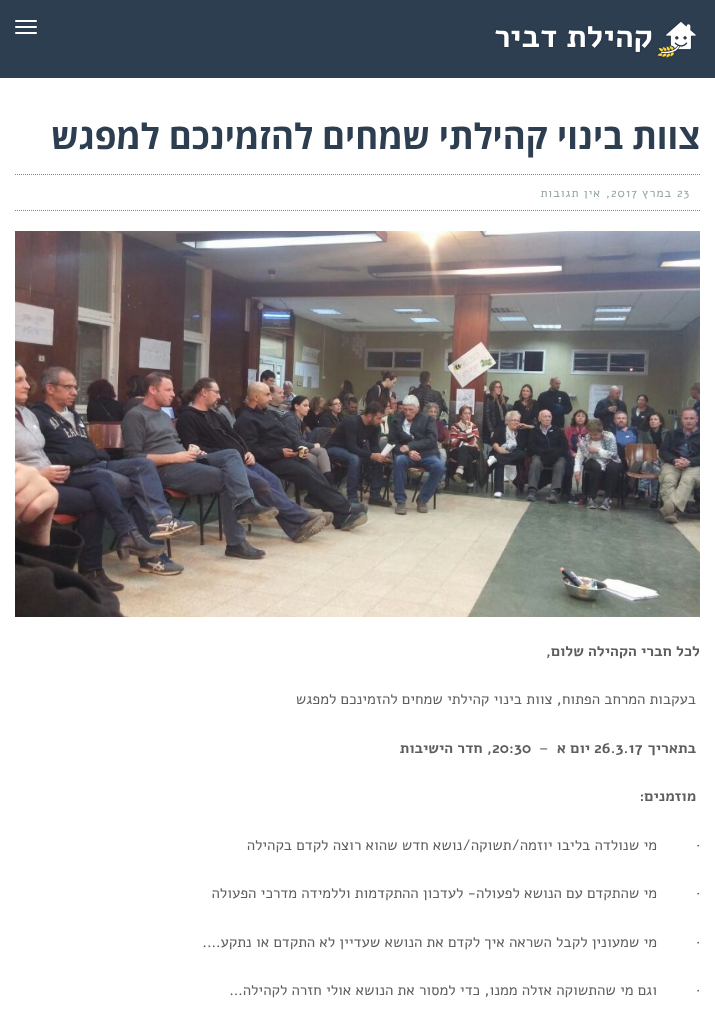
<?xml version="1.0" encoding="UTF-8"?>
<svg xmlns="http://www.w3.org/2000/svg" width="715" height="1014">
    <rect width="100%" height="100%" fill="#FFFFFF"/>
    <rect x="0" y="0" width="715" height="78" fill="#2C3E50"/>
    <image x="495" y="21" width="201" height="37" href="img_01.png"/>
    <rect x="15" y="20" width="22" height="2" rx="1" fill="#FFFFFF"/>
    <rect x="15" y="26" width="22" height="2" rx="1" fill="#FFFFFF"/>
    <rect x="15" y="32" width="22" height="2" rx="1" fill="#FFFFFF"/>
    <text x="700" y="149" font-family="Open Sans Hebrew" font-size="35" font-weight="700" direction="rtl" fill="#2C3E50">צוות בינוי קהילתי שמחים להזמינכם למפגש</text>
    <path d="M 15 174.5 H 700" fill="none" stroke="#7F8C8D" stroke-dasharray="1 1"/>
    <path d="M 15 210.5 H 700" fill="none" stroke="#7F8C8D" stroke-dasharray="1 1"/>
    <text x="677" y="197" font-family="Alef" font-size="12" letter-spacing="1" fill="#95A5A6">23</text>
    <text x="672" y="197" font-family="Alef" font-size="12" letter-spacing="1" direction="rtl" fill="#95A5A6">במרץ</text>
    <text x="611" y="197" font-family="Alef" font-size="12" letter-spacing="1" fill="#95A5A6">2017</text>
    <text x="606" y="197" font-family="Alef" font-size="12" letter-spacing="1" fill="#95A5A6">,</text>
    <text x="601" y="197" font-family="Alef" font-size="12" letter-spacing="1" direction="rtl" fill="#95A5A6">אין תגובות</text>
    <image x="15" y="231" width="685" height="386" href="img_02.png"/>
    <text x="700" y="656" font-family="Alef" font-size="15" font-weight="700" direction="rtl" fill="#5E5E5E">לכל חברי הקהילה</text>
    <text x="584" y="656" font-family="Alef" font-size="15" font-weight="700" direction="rtl" fill="#5E5E5E">שלום,</text>
    <text x="696" y="704" font-family="Alef" font-size="15" direction="rtl" fill="#5E5E5E">בעקבות המרחב הפתוח, צוות בינוי קהילתי שמחים להזמינכם למפגש</text>
    <text x="696" y="753" font-family="Alef" font-size="15" font-weight="700" direction="rtl" fill="#5E5E5E">בתאריך</text>
    <text x="594" y="753" font-family="Alef" font-size="15" font-weight="700" fill="#5E5E5E">26.3.17</text>
    <text x="590" y="753" font-family="Alef" font-size="15" font-weight="700" direction="rtl" fill="#5E5E5E">יום א</text>
    <text x="539" y="753" font-family="Alef" font-size="15" fill="#5E5E5E">–</text>
    <text x="492" y="753" font-family="Alef" font-size="15" font-weight="700" fill="#5E5E5E">20:30</text>
    <text x="492" y="753" font-family="Alef" font-size="15" font-weight="700" direction="rtl" fill="#5E5E5E">, חדר הישיבות</text>
    <text x="696" y="801" font-family="Alef" font-size="15" font-weight="700" direction="rtl" fill="#5E5E5E">מוזמנים:</text>
    <text x="696" y="850" font-family="Alef" font-size="15" fill="#5E5E5E">·</text>
    <text x="657" y="850" font-family="Alef" font-size="15" direction="rtl" fill="#5E5E5E">מי שנולדה בליבו יוזמה/תשוקה/נושא חדש שהוא רוצה לקדם בקהילה</text>
    <text x="696" y="898" font-family="Alef" font-size="15" fill="#5E5E5E">·</text>
    <text x="657" y="898" font-family="Alef" font-size="15" direction="rtl" fill="#5E5E5E">מי שהתקדם עם הנושא לפעולה- לעדכון ההתקדמות וללמידה מדרכי הפעולה</text>
    <text x="696" y="947" font-family="Alef" font-size="15" fill="#5E5E5E">·</text>
    <text x="657" y="947" font-family="Alef" font-size="15" direction="rtl" fill="#5E5E5E">מי שמעונין לקבל השראה איך לקדם את הנושא שעדיין לא התקדם או נתקע….</text>
    <text x="696" y="995" font-family="Alef" font-size="15" fill="#5E5E5E">·</text>
    <text x="657" y="995" font-family="Alef" font-size="15" direction="rtl" fill="#5E5E5E">וגם מי שהתשוקה אזלה ממנו, כדי למסור את הנושא אולי חזרה לקהילה…</text>
</svg>
